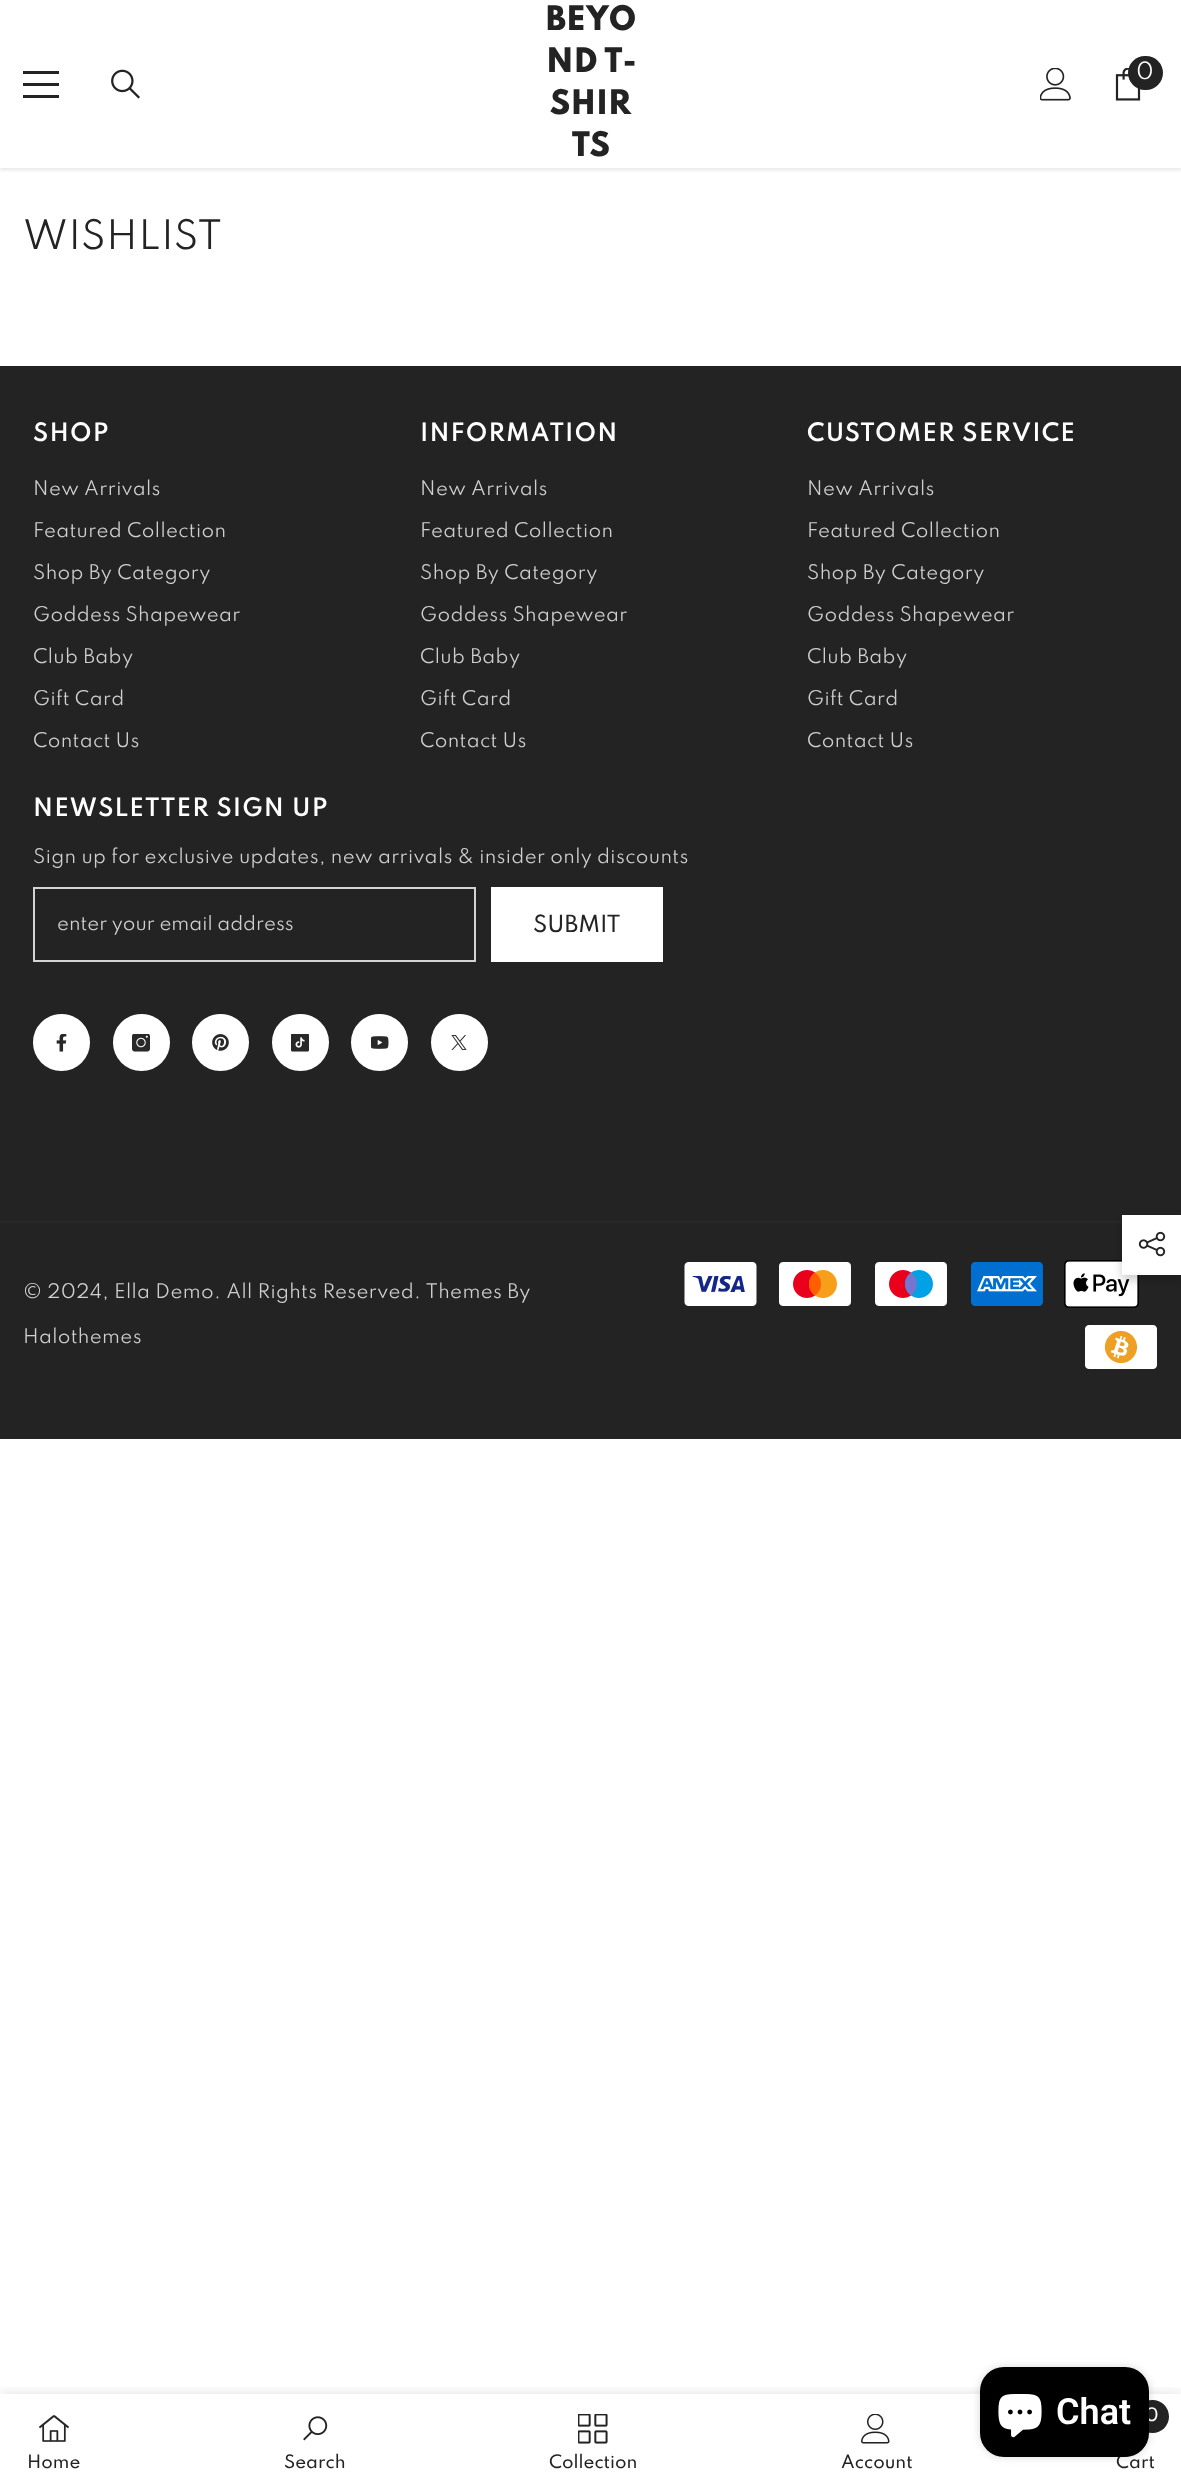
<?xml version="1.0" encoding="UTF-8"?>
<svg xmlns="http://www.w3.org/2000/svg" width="1181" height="2488">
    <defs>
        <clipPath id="clip1"><rect x="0" y="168" width="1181" height="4"/></clipPath>
        <filter id="blur1" x="-50%" y="-200%" width="200%" height="500%"><feGaussianBlur stdDeviation="2"/></filter>
        <clipPath id="clip2"><rect x="57" y="915" width="395" height="21"/></clipPath>
        <clipPath id="clip3"><rect x="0" y="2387" width="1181" height="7"/></clipPath>
        <filter id="blur2" x="-50%" y="-200%" width="200%" height="500%"><feGaussianBlur stdDeviation="7"/></filter>
        <filter id="blur3" x="-50%" y="-200%" width="200%" height="500%"><feGaussianBlur stdDeviation="5"/></filter>
        <filter id="blur4" x="-50%" y="-200%" width="200%" height="500%"><feGaussianBlur stdDeviation="4"/></filter>
    </defs>
    <rect width="100%" height="100%" fill="#FFFFFF"/>
    <g clip-path="url(#clip1)">
        <rect x="0" y="2" width="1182" height="168" fill="#000000" fill-opacity="0.1" filter="url(#blur1)"/>
    </g>
    <rect x="23" y="83" width="36" height="3" fill="#232323"/>
    <rect x="23" y="71" width="36" height="3" fill="#232323"/>
    <rect x="23" y="95" width="36" height="3" fill="#232323"/>
    <image x="111" y="69" width="29" height="30" href="img_01.png"/>
    <text font-family="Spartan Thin" font-size="30" font-weight="800" fill="#232323">
        <tspan x="546" y="30">BEYO</tspan>
        <tspan x="546" y="72">ND T-</tspan>
    </text>
    <text x="550" y="114" font-family="Spartan Thin" font-size="30" font-weight="800" fill="#232323">SHIR</text>
    <text x="572" y="156" font-family="Spartan Thin" font-size="30" font-weight="800" fill="#232323">TS</text>
    <image x="1040" y="68" width="31" height="33" href="img_02.png"/>
    <image x="1115" y="68" width="26" height="33" href="img_03.png"/>
    <rect x="1128" y="56" width="35" height="34" rx="17" fill="#232323"/>
    <text x="1136" y="79" font-family="Spartan Thin" font-size="21" fill="#FFFFFF">0</text>
    <text x="23" y="249" font-family="Spartan Thin" font-size="36" letter-spacing="0.75" fill="#232323">WISHLIST</text>
    <rect x="0" y="366" width="1181" height="855" fill="#232323"/>
    <text x="33" y="441" font-family="Spartan Thin" font-size="22.5" font-weight="600" letter-spacing="1.1" fill="#FFFFFF">SHOP</text>
    <text x="33" y="495" font-family="Spartan Thin" font-size="18" letter-spacing="0.35" fill="#CFCFCF">New Arrivals</text>
    <text x="33" y="537" font-family="Spartan Thin" font-size="18" letter-spacing="0.35" fill="#CFCFCF">Featured Collection</text>
    <text x="33" y="579" font-family="Spartan Thin" font-size="18" letter-spacing="0.35" fill="#CFCFCF">Shop By Category</text>
    <text x="33" y="621" font-family="Spartan Thin" font-size="18" letter-spacing="0.35" fill="#CFCFCF">Goddess Shapewear</text>
    <text x="33" y="663" font-family="Spartan Thin" font-size="18" letter-spacing="0.35" fill="#CFCFCF">Club Baby</text>
    <text x="33" y="705" font-family="Spartan Thin" font-size="18" letter-spacing="0.35" fill="#CFCFCF">Gift Card</text>
    <text x="33" y="747" font-family="Spartan Thin" font-size="18" letter-spacing="0.35" fill="#CFCFCF">Contact Us</text>
    <text x="420" y="441" font-family="Spartan Thin" font-size="22.5" font-weight="600" letter-spacing="1.1" fill="#FFFFFF">INFORMATION</text>
    <text x="420" y="495" font-family="Spartan Thin" font-size="18" letter-spacing="0.35" fill="#CFCFCF">New Arrivals</text>
    <text x="420" y="537" font-family="Spartan Thin" font-size="18" letter-spacing="0.35" fill="#CFCFCF">Featured Collection</text>
    <text x="420" y="579" font-family="Spartan Thin" font-size="18" letter-spacing="0.35" fill="#CFCFCF">Shop By Category</text>
    <text x="420" y="621" font-family="Spartan Thin" font-size="18" letter-spacing="0.35" fill="#CFCFCF">Goddess Shapewear</text>
    <text x="420" y="663" font-family="Spartan Thin" font-size="18" letter-spacing="0.35" fill="#CFCFCF">Club Baby</text>
    <text x="420" y="705" font-family="Spartan Thin" font-size="18" letter-spacing="0.35" fill="#CFCFCF">Gift Card</text>
    <text x="420" y="747" font-family="Spartan Thin" font-size="18" letter-spacing="0.35" fill="#CFCFCF">Contact Us</text>
    <text x="807" y="441" font-family="Spartan Thin" font-size="22.5" font-weight="600" letter-spacing="1.1" fill="#FFFFFF">CUSTOMER SERVICE</text>
    <text x="807" y="495" font-family="Spartan Thin" font-size="18" letter-spacing="0.35" fill="#CFCFCF">New Arrivals</text>
    <text x="807" y="537" font-family="Spartan Thin" font-size="18" letter-spacing="0.35" fill="#CFCFCF">Featured Collection</text>
    <text x="807" y="579" font-family="Spartan Thin" font-size="18" letter-spacing="0.35" fill="#CFCFCF">Shop By Category</text>
    <text x="807" y="621" font-family="Spartan Thin" font-size="18" letter-spacing="0.35" fill="#CFCFCF">Goddess Shapewear</text>
    <text x="807" y="663" font-family="Spartan Thin" font-size="18" letter-spacing="0.35" fill="#CFCFCF">Club Baby</text>
    <text x="807" y="705" font-family="Spartan Thin" font-size="18" letter-spacing="0.35" fill="#CFCFCF">Gift Card</text>
    <text x="807" y="747" font-family="Spartan Thin" font-size="18" letter-spacing="0.35" fill="#CFCFCF">Contact Us</text>
    <text x="33" y="816" font-family="Spartan Thin" font-size="22.5" font-weight="600" letter-spacing="1.1" fill="#FFFFFF">NEWSLETTER SIGN UP</text>
    <text x="33" y="863" font-family="Spartan Thin" font-size="18" letter-spacing="0.35" fill="#CFCFCF">Sign up for exclusive updates, new arrivals &amp; insider only discounts</text>
    <rect x="34" y="888" width="441" height="73" fill="none" stroke="#D3D3D3" stroke-width="2"/>
    <g clip-path="url(#clip2)">
        <text x="57" y="930" font-family="Spartan Thin" font-size="18" fill="#CFCFCF">enter your email address</text>
    </g>
    <rect x="491" y="887" width="172" height="75" fill="#FFFFFF"/>
    <text x="533" y="932" font-family="Spartan Thin" font-size="21" font-weight="500" fill="#232323">SUBMIT</text>
    <circle cx="61.5" cy="1042.5" r="27.5" fill="#FFFFFF" stroke="#FFFFFF" stroke-width="2"/>
    <image x="56" y="1034" width="11" height="18" href="img_04.png"/>
    <circle cx="141.5" cy="1042.5" r="27.5" fill="#FFFFFF" stroke="#FFFFFF" stroke-width="2"/>
    <image x="132" y="1034" width="18" height="18" href="img_05.png"/>
    <circle cx="220.5" cy="1042.5" r="27.5" fill="#FFFFFF" stroke="#FFFFFF" stroke-width="2"/>
    <image x="212" y="1034" width="17" height="17" href="img_06.png"/>
    <circle cx="300.5" cy="1042.5" r="27.5" fill="#FFFFFF" stroke="#FFFFFF" stroke-width="2"/>
    <image x="291" y="1034" width="18" height="18" href="img_07.png"/>
    <circle cx="379.5" cy="1042.5" r="27.5" fill="#FFFFFF" stroke="#FFFFFF" stroke-width="2"/>
    <image x="371" y="1036" width="18" height="13" href="img_08.png"/>
    <circle cx="459.5" cy="1042.5" r="27.5" fill="#FFFFFF" stroke="#FFFFFF" stroke-width="2"/>
    <image x="451" y="1035" width="16" height="15" href="img_09.png"/>
    <rect x="0" y="1223" width="1181" height="216" fill="#232323"/>
    <rect x="0" y="1221" width="1122" height="2" fill="#282828"/>
    <text x="23" y="1298" font-family="Spartan Thin" font-size="18" letter-spacing="0.35" fill="#CFCFCF">© 2024, Ella Demo. All Rights Reserved. Themes By</text>
    <text x="23" y="1343" font-family="Spartan Thin" font-size="18" letter-spacing="0.35" fill="#CFCFCF">Halothemes</text>
    <image x="684" y="1262" width="73" height="44" href="img_10.png"/>
    <image x="779" y="1262" width="72" height="44" href="img_11.png"/>
    <image x="875" y="1262" width="72" height="44" href="img_12.png"/>
    <image x="971" y="1262" width="72" height="44" href="img_13.png"/>
    <image x="1064" y="1260" width="75" height="48" href="img_14.png"/>
    <image x="1085" y="1325" width="72" height="44" href="img_15.png"/>
    <g clip-path="url(#clip3)">
        <rect x="0" y="2394" width="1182" height="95" fill="#000000" fill-opacity="0.12" filter="url(#blur2)"/>
    </g>
    <image x="39" y="2415" width="30" height="27" href="img_16.png"/>
    <text x="27" y="2468" font-family="Spartan Thin" font-size="16.5" font-weight="500" fill="#232323">Home</text>
    <image x="303" y="2416" width="25" height="25" href="img_17.png"/>
    <text x="284" y="2468" font-family="Spartan Thin" font-size="16.5" font-weight="500" fill="#232323">Search</text>
    <image x="578" y="2414" width="30" height="30" href="img_18.png"/>
    <text x="549" y="2468" font-family="Spartan Thin" font-size="16.5" font-weight="500" fill="#232323">Collection</text>
    <image x="861" y="2414" width="29" height="30" href="img_19.png"/>
    <text x="841" y="2468" font-family="Spartan Thin" font-size="16.5" font-weight="500" fill="#232323">Account</text>
    <circle cx="1152.5" cy="2416.5" r="16.5" fill="#232323"/>
    <text x="1145" y="2421" font-family="Spartan Thin" font-size="16.5" font-weight="500" fill="#FFFFFF">0</text>
    <text x="1116" y="2468" font-family="Spartan Thin" font-size="16.5" font-weight="500" fill="#232323">Cart</text>
    <rect x="1122" y="1220" width="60" height="60" fill="#000000" fill-opacity="0.2" filter="url(#blur3)"/>
    <rect x="1122" y="1215" width="59" height="60" fill="#FFFFFF"/>
    <image x="1138" y="1231" width="28" height="26" href="img_20.png"/>
    <rect x="980" y="2367" width="169" height="90" rx="24" fill="#000000" fill-opacity="0.15" filter="url(#blur4)"/>
    <rect x="980" y="2367" width="169" height="90" rx="24" fill="#000000"/>
    <image x="998" y="2394" width="44" height="44" href="img_21.png"/>
    <text x="1056" y="2424" font-family="Roboto" font-size="36" font-weight="600" fill="#FFFFFF">Chat</text>
</svg>
